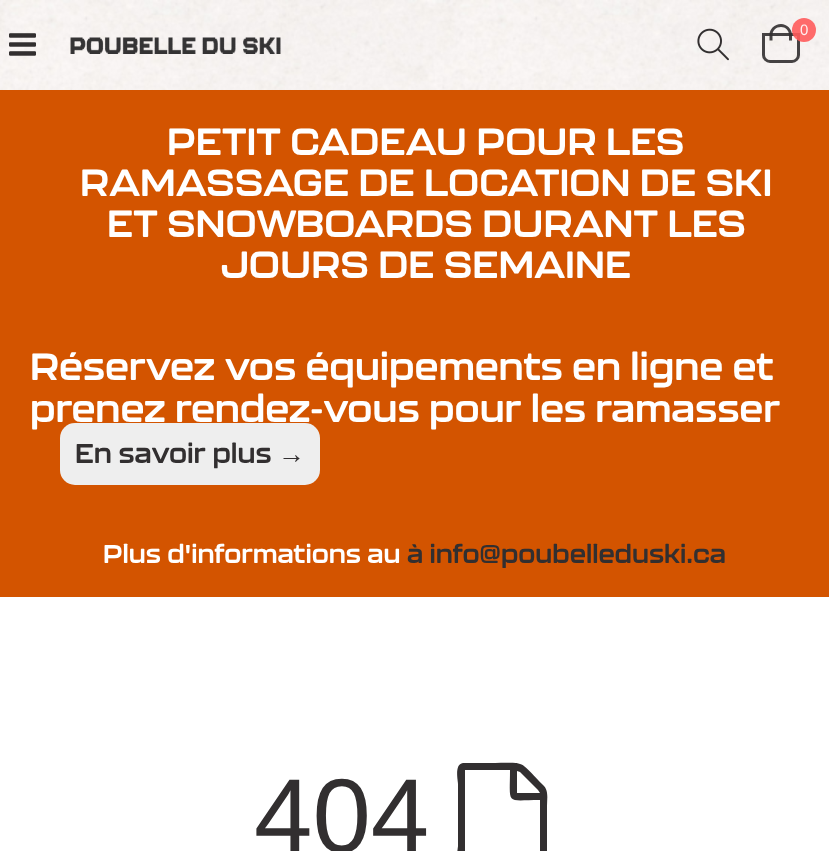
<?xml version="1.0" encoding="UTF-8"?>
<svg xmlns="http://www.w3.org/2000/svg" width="829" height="851">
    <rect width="100%" height="100%" fill="#FFFFFF"/>
    <image x="0" y="0" width="829" height="90" href="img_01.png"/>
    <image x="697" y="28" width="32" height="33" href="img_02.png"/>
    <path d="M 763.5 34.5 H 798.5 V 55 C 798.5 58.5 795.5 61.5 792 61.5 H 770 C 766.5 61.5 763.5 58.5 763.5 55 Z" fill="none" stroke="#322F30" stroke-opacity="0.9" stroke-width="3"/>
    <path d="M 781 24 C 787 24 792 29 792 35 V 40.5 H 769.5 V 35 C 769.5 29 774.5 24 781 24 Z M 781 27 C 785.5 27 789 30.5 789 35 V 40.5 H 772.5 V 35 C 772.5 30.5 776 27 781 27 Z" fill="#322F30" fill-opacity="0.9" fill-rule="evenodd"/>
    <circle cx="804" cy="30" r="12" fill="#FF5B5B" fill-opacity="0.9"/>
    <text x="800" y="35" font-family="Liberation Sans" font-size="15" fill="#FFF0F0">0</text>
    <image x="9" y="33" width="27" height="23" href="img_03.png"/>
    <image x="70" y="37" width="211" height="17" href="img_04.png"/>
    <rect x="0" y="90" width="829" height="507" fill="#D35400"/>
    <text x="167" y="155" font-family="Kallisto" font-size="37.5" font-weight="700" fill="#FFFFFF">PETIT CADEAU POUR LES</text>
    <text x="80" y="196" font-family="Kallisto" font-size="37.5" font-weight="700" fill="#FFFFFF">RAMASSAGE DE LOCATION DE SKI</text>
    <text x="107" y="237" font-family="Kallisto" font-size="37.5" font-weight="700" fill="#FFFFFF">ET SNOWBOARDS DURANT LES</text>
    <text x="220" y="278" font-family="Kallisto" font-size="37.5" font-weight="700" fill="#FFFFFF">JOURS DE SEMAINE</text>
    <text font-family="Kallisto" font-size="37.5" font-weight="700" fill="#FFFFFF">
        <tspan x="30" y="380">Réservez vos équipements en ligne et</tspan>
        <tspan x="30" y="422">prenez rendez-vous pour les ramasser</tspan>
    </text>
    <rect x="60" y="423" width="260" height="62" rx="15" fill="#EEEEEE"/>
    <text x="75" y="463" font-family="Kallisto" font-size="27" font-weight="700" fill="#322F30">En savoir plus</text>
    <text x="278" y="463" font-family="Liberation Serif" font-size="27" fill="#322F30">→</text>
    <text x="103" y="563" font-family="Kallisto" font-size="25.5" font-weight="700" fill="#FFFFFF">Plus d'informations au</text>
    <text x="407" y="563" font-family="Kallisto" font-size="25.5" font-weight="700" fill="#322F30">à info@poubelleduski.ca</text>
    <text x="254" y="852" font-family="Liberation Sans" font-size="105" fill="#322F30">404</text>
    <path d="M 543 785 C 549 790 547 799 547 806 V 851 C 547 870 549 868 529 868 H 476 C 475 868 463 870 459 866 C 455 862 458 848 458 846 V 784 C 458 781 454 764 463 763 H 489 C 528 763 517 759 543 785 Z M 517 771 V 793 H 540 L 538 790 L 520 772 Z M 540 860 V 800 C 505 800 510 806 510 770 H 465 V 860 Z" fill="#322F30"/>
</svg>
